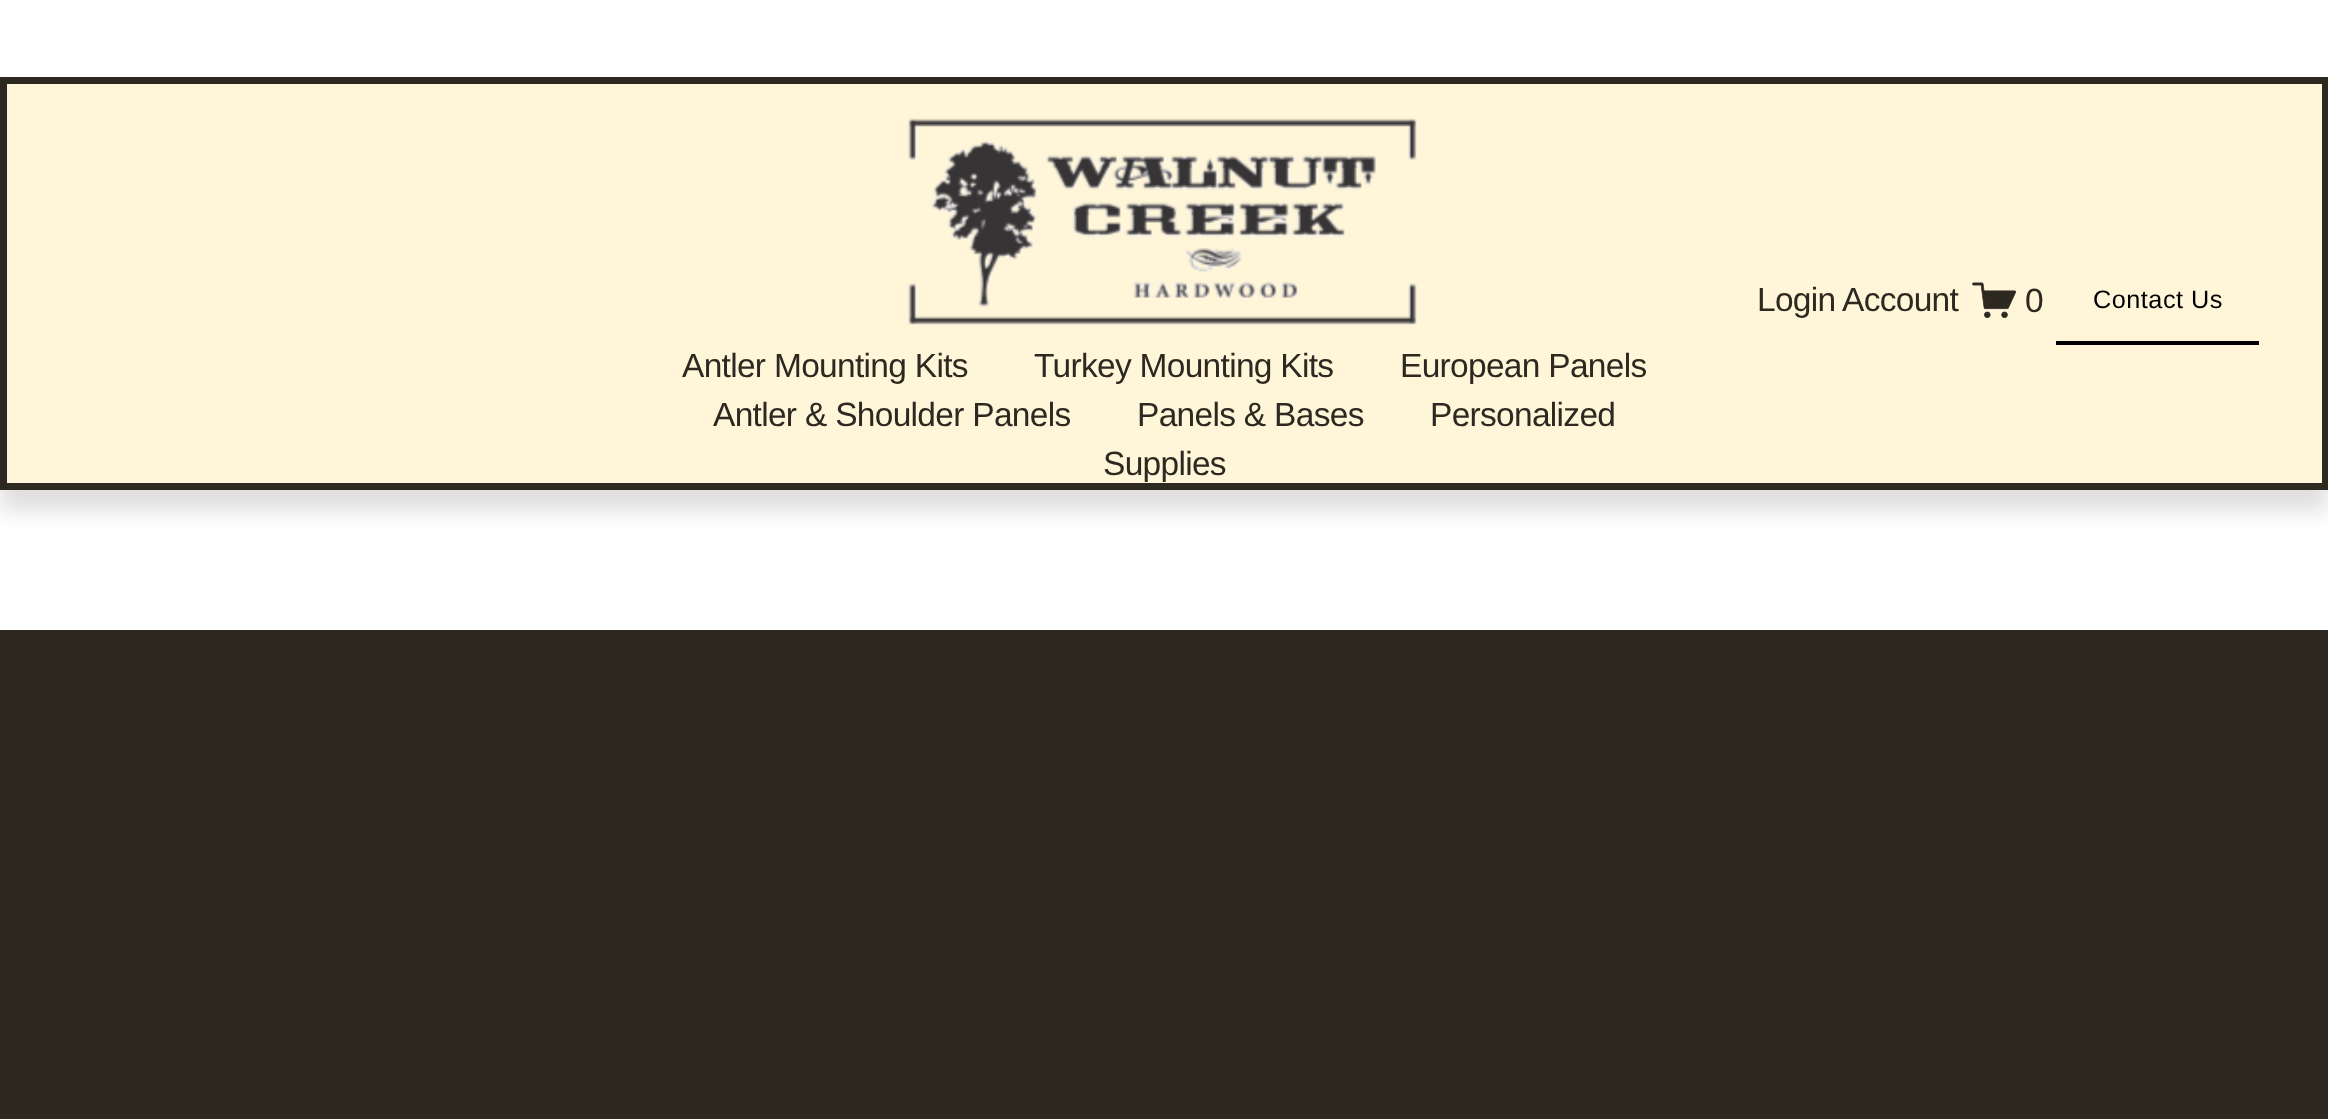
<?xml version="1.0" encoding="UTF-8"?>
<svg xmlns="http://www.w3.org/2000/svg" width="2328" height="1119">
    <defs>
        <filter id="blur1" x="-50%" y="-200%" width="200%" height="500%"><feGaussianBlur stdDeviation="10.5"/></filter>
    </defs>
    <rect width="100%" height="100%" fill="#FFFFFF"/>
    <rect x="0" y="98" width="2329" height="413" fill="#E0DFDE" filter="url(#blur1)"/>
    <rect x="3.5" y="80.5" width="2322" height="406" fill="#FFF5D9" stroke="#2D2921" stroke-width="7"/>
    <text x="1757" y="311" font-family="Liberation Sans" font-size="33.5" letter-spacing="-0.7" fill="#2D2921">Login</text>
    <text x="1842" y="311" font-family="Liberation Sans" font-size="33.5" letter-spacing="-0.7" fill="#2D2921">Account</text>
    <image x="1972" y="282" width="44" height="36" href="img_01.png"/>
    <text x="2025" y="312" font-family="Liberation Sans" font-size="33.5" letter-spacing="-0.7" fill="#2D2921">0</text>
    <rect x="2056" y="341" width="203" height="4" fill="#000000"/>
    <text x="2093" y="308" font-family="Liberation Sans" font-size="25.25" letter-spacing="0.5" fill="#000000">Contact Us</text>
    <image x="908" y="118" width="509" height="207" href="img_02.png"/>
    <text x="682" y="377" font-family="Liberation Sans" font-size="33.5" letter-spacing="-0.7" fill="#2D2921">Antler Mounting Kits</text>
    <text x="1034" y="377" font-family="Liberation Sans" font-size="33.5" letter-spacing="-0.7" fill="#2D2921">Turkey Mounting Kits</text>
    <text x="1400" y="377" font-family="Liberation Sans" font-size="33.5" letter-spacing="-0.7" fill="#2D2921">European Panels</text>
    <text x="713" y="426" font-family="Liberation Sans" font-size="33.5" letter-spacing="-0.7" fill="#2D2921">Antler &amp; Shoulder Panels</text>
    <text x="1137" y="426" font-family="Liberation Sans" font-size="33.5" letter-spacing="-0.7" fill="#2D2921">Panels &amp; Bases</text>
    <text x="1430" y="426" font-family="Liberation Sans" font-size="33.5" letter-spacing="-0.7" fill="#2D2921">Personalized</text>
    <text x="1103" y="475" font-family="Liberation Sans" font-size="33.5" letter-spacing="-0.7" fill="#2D2921">Supplies</text>
    <rect x="0" y="630" width="2328" height="489" fill="#2D2921"/>
</svg>
